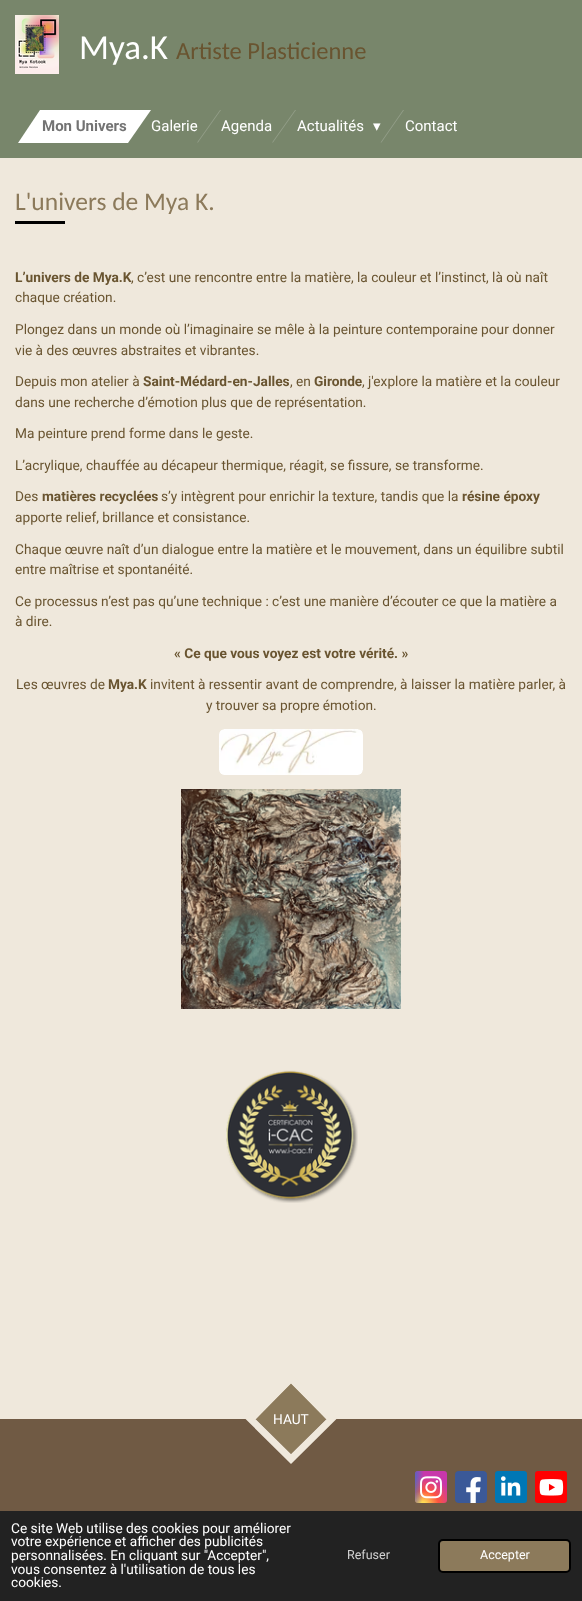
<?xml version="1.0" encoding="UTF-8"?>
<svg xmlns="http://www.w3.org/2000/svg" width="582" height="1601">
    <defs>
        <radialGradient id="g1" gradientUnits="userSpaceOnUse" cx="0" cy="0" r="1" gradientTransform="matrix(31 0 0 29 423 1505)"><stop offset="0" stop-color="#FFDD55"/><stop offset="0.1" stop-color="#FFDD55"/><stop offset="0.5" stop-color="#FF543E"/><stop offset="1" stop-color="#C837AB"/></radialGradient>
        <radialGradient id="g2" gradientUnits="userSpaceOnUse" cx="0" cy="0" r="1" gradientTransform="matrix(14 0 0 58 410 1473)"><stop offset="0" stop-color="#3771C8"/><stop offset="0.13" stop-color="#3771C8"/><stop offset="1" stop-color="#3771C8" stop-opacity="0"/></radialGradient>
    </defs>
    <rect width="100%" height="100%" fill="#EFE8DC"/>
    <rect x="0" y="0" width="582" height="158" fill="#78866B"/>
    <image x="15" y="15" width="44" height="59" href="img_01.png"/>
    <text x="79" y="59" font-family="Carlito" font-size="35" fill="#FFFFFF">Mya.K</text>
    <text x="176" y="59" font-family="Carlito" font-size="24.5" fill="#695430">Artiste Plasticienne</text>
    <path d="M 40 110 H 151 L 128 143 H 18 Z" fill="#FFFFFF"/>
    <text x="42" y="131" font-family="Roboto" font-size="15" font-weight="700" fill="#737373">Mon Univers</text>
    <text x="151" y="131" font-family="Roboto" font-size="15" fill="#FFFFFF">Galerie</text>
    <path d="M 220 110 H 221 L 198 142.5 H 197 Z" fill="#939E89"/>
    <text x="221" y="131" font-family="Roboto" font-size="15" fill="#FFFFFF">Agenda</text>
    <path d="M 295 110 H 296 L 273 142.5 H 272 Z" fill="#939E89"/>
    <text x="297" y="131" font-family="Roboto" font-size="15" fill="#FFFFFF">Actualités</text>
    <path d="M 403 110 H 404 L 381.5 142.5 H 380.5 Z" fill="#939E89"/>
    <text x="373" y="131" font-family="DejaVu Sans" font-size="15" fill="#FFFFFF">▾</text>
    <text x="405" y="131" font-family="Roboto" font-size="15" fill="#FFFFFF">Contact</text>
    <text x="15" y="210" font-family="Carlito" font-size="25.5" fill="#8C7A5B">L'univers de Mya K.</text>
    <rect x="15" y="221" width="50" height="3" fill="#000000"/>
    <text x="15" y="282" font-family="Roboto" font-size="13.7" font-weight="700" fill="#695430">L’univers de Mya.K</text>
    <text x="131" y="282" font-family="Roboto" font-size="13.7" fill="#695430">, c’est une rencontre entre la matière, la couleur et l’instinct, là où naît</text>
    <text x="15" y="302" font-family="Roboto" font-size="13.7" fill="#695430">chaque création.</text>
    <text font-family="Roboto" font-size="13.7" fill="#695430">
        <tspan x="15" y="334">Plongez dans un monde où l’imaginaire se mêle à la peinture contemporaine pour donner</tspan>
        <tspan x="15" y="355">vie à des œuvres abstraites et vibrantes.</tspan>
    </text>
    <text x="15" y="386" font-family="Roboto" font-size="13.7" fill="#695430">Depuis mon atelier à</text>
    <text x="143" y="386" font-family="Roboto" font-size="13.7" font-weight="700" fill="#695430">Saint-Médard-en-Jalles</text>
    <text x="290" y="386" font-family="Roboto" font-size="13.7" fill="#695430">, en</text>
    <text x="314" y="386" font-family="Roboto" font-size="13.7" font-weight="700" fill="#695430">Gironde</text>
    <text x="362" y="386" font-family="Roboto" font-size="13.7" fill="#695430">, j'explore la matière et la couleur</text>
    <text x="15" y="407" font-family="Roboto" font-size="13.7" fill="#695430">dans une recherche d’émotion plus que de représentation.</text>
    <text x="15" y="438" font-family="Roboto" font-size="13.7" fill="#695430">Ma peinture prend forme dans le geste.</text>
    <text x="15" y="470" font-family="Roboto" font-size="13.7" fill="#695430">L’acrylique, chauffée au décapeur thermique, réagit, se fissure, se transforme.</text>
    <text x="15" y="501" font-family="Roboto" font-size="13.7" fill="#695430">Des</text>
    <text x="42" y="501" font-family="Roboto" font-size="13.7" font-weight="700" fill="#695430">matières recyclées</text>
    <text x="161" y="501" font-family="Roboto" font-size="13.7" fill="#695430">s’y intègrent pour enrichir la texture, tandis que la</text>
    <text x="462" y="501" font-family="Roboto" font-size="13.7" font-weight="700" fill="#695430">résine époxy</text>
    <text x="15" y="522" font-family="Roboto" font-size="13.7" fill="#695430">apporte relief, brillance et consistance.</text>
    <text font-family="Roboto" font-size="13.7" fill="#695430">
        <tspan x="15" y="554">Chaque œuvre naît d’un dialogue entre la matière et le mouvement, dans un équilibre subtil</tspan>
        <tspan x="15" y="574">entre maîtrise et spontanéité.</tspan>
    </text>
    <text font-family="Roboto" font-size="13.7" fill="#695430">
        <tspan x="15" y="606">Ce processus n’est pas qu’une technique : c’est une manière d’écouter ce que la matière a</tspan>
        <tspan x="15" y="626">à dire.</tspan>
    </text>
    <text x="174" y="658" font-family="Roboto" font-size="13.7" font-weight="700" fill="#695430">« Ce que vous voyez est votre vérité. »</text>
    <text x="16" y="689" font-family="Roboto" font-size="13.7" fill="#695430">Les œuvres de</text>
    <text x="108" y="689" font-family="Roboto" font-size="13.7" font-weight="700" fill="#695430">Mya.K</text>
    <text x="150" y="689" font-family="Roboto" font-size="13.7" fill="#695430">invitent à ressentir avant de comprendre, à laisser la matière parler, à</text>
    <text x="206" y="710" font-family="Roboto" font-size="13.7" fill="#695430">y trouver sa propre émotion.</text>
    <image x="219" y="729" width="144" height="46" href="img_02.png"/>
    <image x="181" y="789" width="220" height="220" href="img_03.png"/>
    <image x="226" y="1070" width="132" height="133" href="img_04.png"/>
    <rect x="0" y="1419" width="582" height="92" fill="#705A44"/>
    <path d="M 291 1383 L 326 1419 L 291 1454 L 256 1419 Z" fill="#8C7A5B"/>
    <path d="M 291 1378.5 L 331.5 1419 L 291 1459 L 250.5 1419 Z" fill="none" stroke="#EFE8DC" stroke-width="7"/>
    <text x="273" y="1424" font-family="Roboto" font-size="13.7" fill="#FFFFFF">HAUT</text>
    <rect x="415" y="1471" width="32" height="32" rx="3" fill="url(#g1)"/>
    <rect x="415" y="1471" width="32" height="32" rx="3" fill="url(#g2)"/>
    <image x="420" y="1476" width="22" height="23" href="img_05.png"/>
    <rect x="455" y="1471" width="32" height="32" rx="4" fill="#3B5998"/>
    <image x="466" y="1477" width="15" height="26" href="img_06.png"/>
    <rect x="495" y="1471" width="32" height="32" rx="3" fill="#0077B5"/>
    <image x="501" y="1476" width="20" height="20" href="img_07.png"/>
    <rect x="535" y="1471" width="32" height="32" rx="3" fill="#FF0000"/>
    <image x="539" y="1479" width="25" height="17" href="img_08.png"/>
    <rect x="0" y="1511" width="582" height="90" fill="#222222"/>
    <text font-family="Roboto" font-size="13.7" fill="#FFFFFF">
        <tspan x="11" y="1533">Ce site Web utilise des cookies pour améliorer</tspan>
        <tspan x="11" y="1546">votre expérience et afficher des publicités</tspan>
        <tspan x="11" y="1560">personnalisées. En cliquant sur "Accepter",</tspan>
        <tspan x="11" y="1574">vous consentez à l'utilisation de tous les</tspan>
        <tspan x="11" y="1587">cookies.</tspan>
    </text>
    <text x="347" y="1559" font-family="Roboto" font-size="12.5" fill="#D3D3D3">Refuser</text>
    <rect x="439" y="1540" width="131" height="32" rx="4" fill="#8C7A5B" stroke="#000000" stroke-width="2"/>
    <text x="480" y="1559" font-family="Roboto" font-size="12.5" fill="#FFFFFF">Accepter</text>
</svg>
